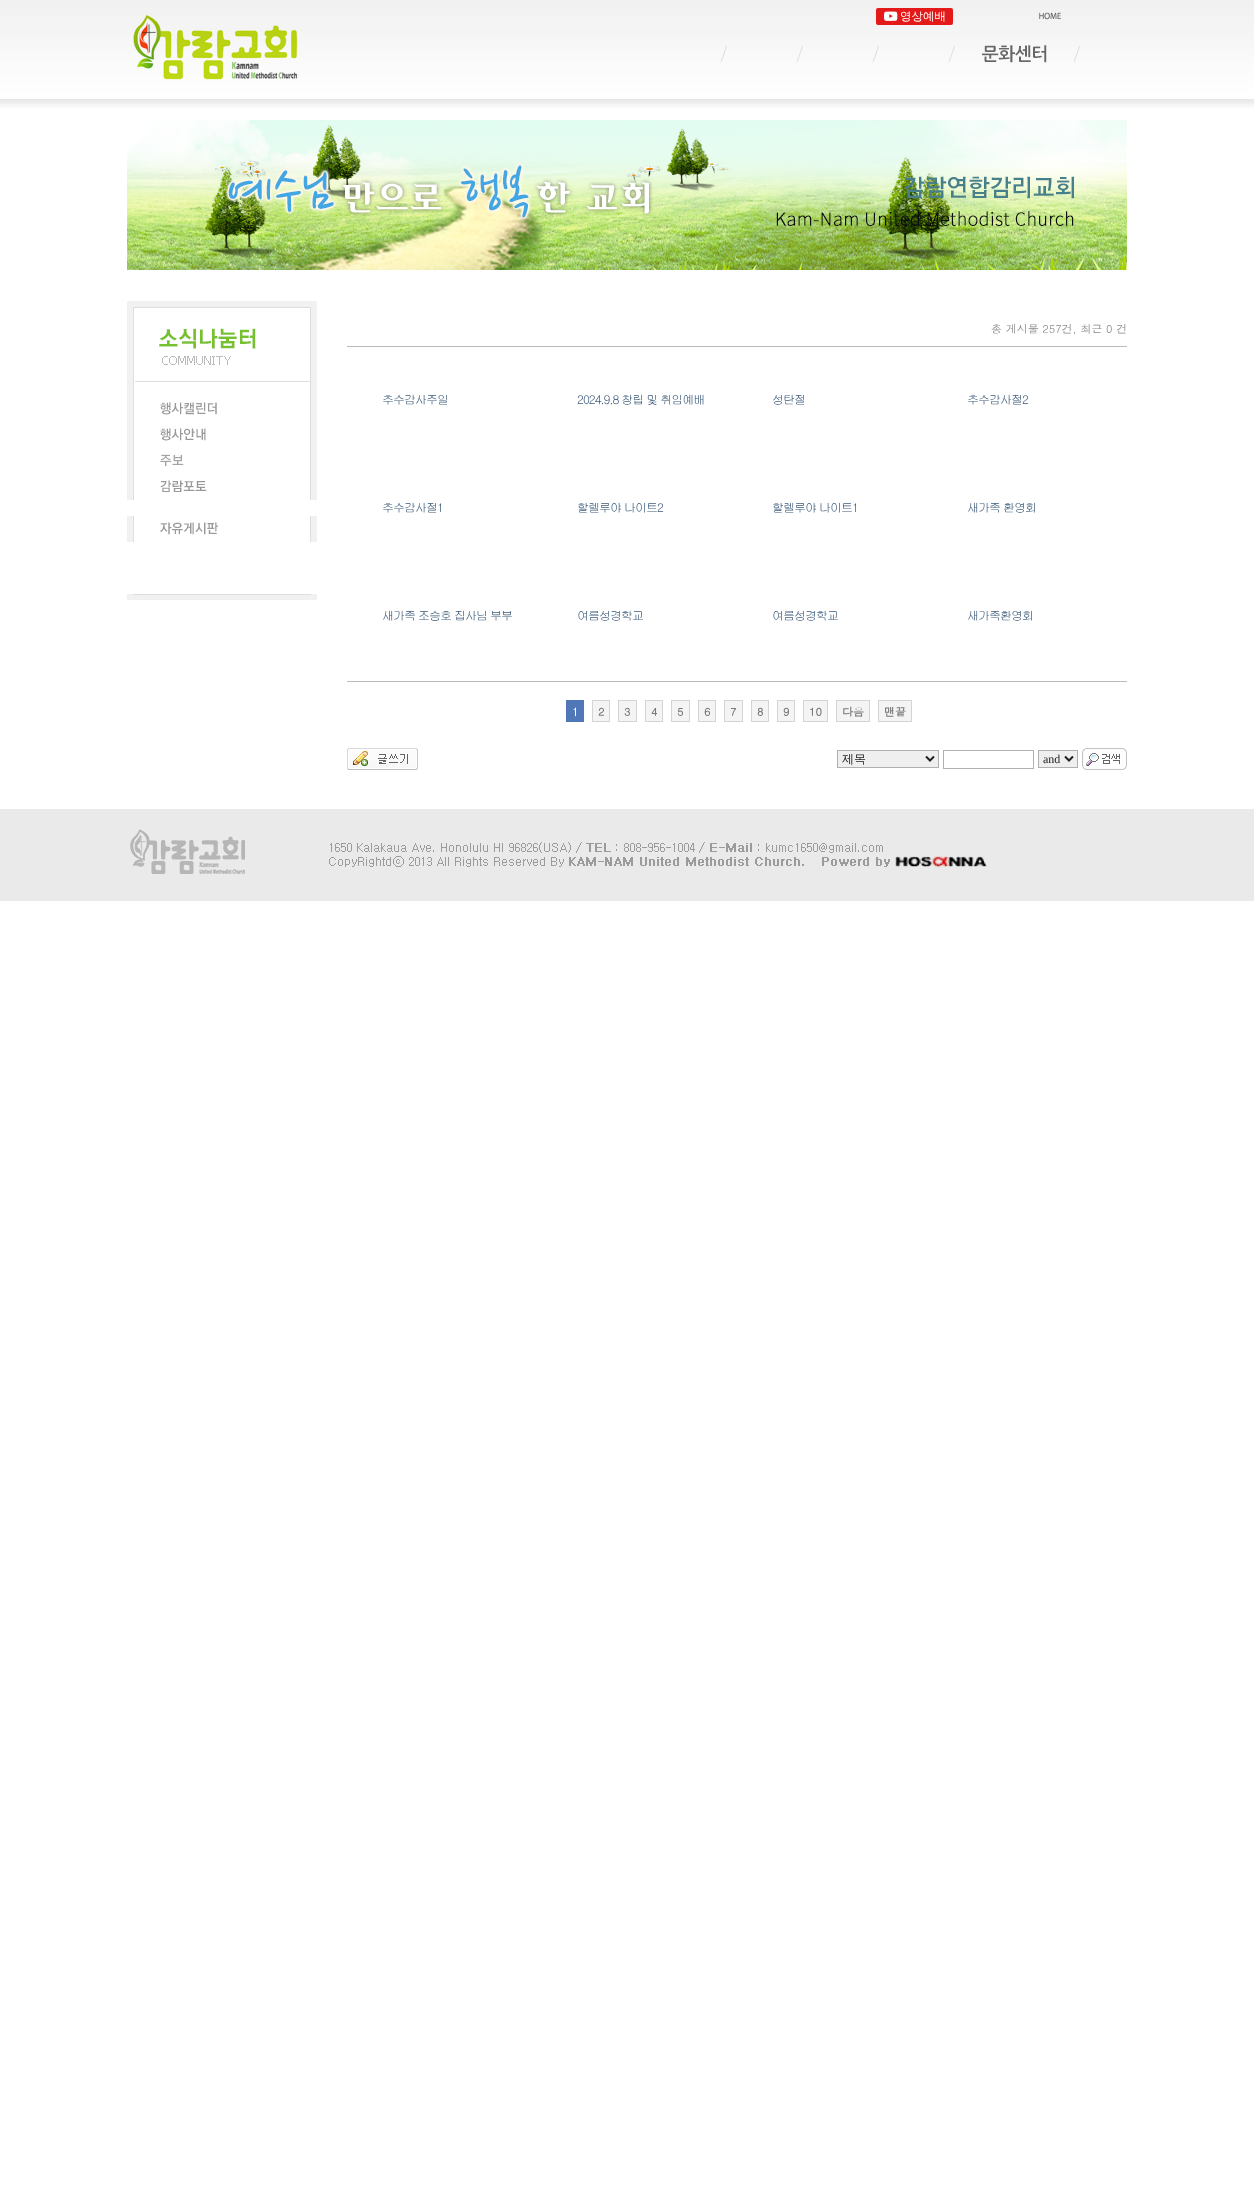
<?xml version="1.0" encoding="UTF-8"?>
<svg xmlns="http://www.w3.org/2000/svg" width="1254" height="2190">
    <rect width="100%" height="100%" fill="#FFFFFF"/>
    <image x="0" y="0" width="1254" height="108" href="img_01.png"/>
    <image x="132" y="15" width="171" height="65" href="img_02.png"/>
    <rect x="876" y="8" width="77" height="17" rx="2" fill="#E41919"/>
    <image x="884" y="11" width="14" height="10" href="img_03.png"/>
    <text x="900" y="20" font-family="WenQuanYi Zen Hei" font-size="11.5" font-weight="500" fill="#FFFFFF">영상예배</text>
    <image x="1039" y="12" width="22" height="8" href="img_04.png"/>
    <image x="720" y="46" width="7" height="16" href="img_05.png"/>
    <image x="796" y="46" width="7" height="16" href="img_05.png"/>
    <image x="872" y="46" width="7" height="16" href="img_05.png"/>
    <image x="948" y="46" width="7" height="16" href="img_05.png"/>
    <image x="982" y="45" width="65" height="18" href="img_06.png"/>
    <image x="1073" y="46" width="7" height="16" href="img_05.png"/>
    <image x="127" y="120" width="1000" height="150" href="img_07.png"/>
    <image x="127" y="301" width="190" height="95" href="img_08.png"/>
    <image x="127" y="396" width="190" height="26" href="img_09.png"/>
    <image x="127" y="422" width="190" height="26" href="img_10.png"/>
    <image x="127" y="448" width="190" height="26" href="img_11.png"/>
    <image x="127" y="474" width="190" height="26" href="img_12.png"/>
    <image x="127" y="516" width="190" height="26" href="img_13.png"/>
    <image x="127" y="594" width="190" height="6" href="img_14.png"/>
    <text x="991" y="333" font-family="Dotum" font-size="11" fill="#888888">총 게시물 257건, 최근 0 건</text>
    <rect x="347" y="346" width="780" height="1" fill="#BBBBBB"/>
    <text x="382" y="404" font-family="Gulim" font-size="12" letter-spacing="-1" fill="#3D5B7A">추수감사주일</text>
    <text x="577" y="404" font-family="Gulim" font-size="12" letter-spacing="-1" fill="#3D5B7A">2024.9.8 창립 및 취임예배</text>
    <text x="772" y="404" font-family="Gulim" font-size="12" letter-spacing="-1" fill="#3D5B7A">성탄절</text>
    <text x="967" y="404" font-family="Gulim" font-size="12" letter-spacing="-1" fill="#3D5B7A">추수감사절2</text>
    <text x="382" y="512" font-family="Gulim" font-size="12" letter-spacing="-1" fill="#3D5B7A">추수감사절1</text>
    <text x="577" y="512" font-family="Gulim" font-size="12" letter-spacing="-1" fill="#3D5B7A">할렐루야 나이트2</text>
    <text x="772" y="512" font-family="Gulim" font-size="12" letter-spacing="-1" fill="#3D5B7A">할렐루야 나이트1</text>
    <text x="967" y="512" font-family="Gulim" font-size="12" letter-spacing="-1" fill="#3D5B7A">새가족 환영회</text>
    <text x="382" y="620" font-family="Gulim" font-size="12" letter-spacing="-1" fill="#3D5B7A">새가족 조승호 집사님 부부</text>
    <text x="577" y="620" font-family="Gulim" font-size="12" letter-spacing="-1" fill="#3D5B7A">여름성경학교</text>
    <text x="772" y="620" font-family="Gulim" font-size="12" letter-spacing="-1" fill="#3D5B7A">여름성경학교</text>
    <text x="967" y="620" font-family="Gulim" font-size="12" letter-spacing="-1" fill="#3D5B7A">새가족환영회</text>
    <rect x="347" y="681" width="780" height="1" fill="#BBBBBB"/>
    <rect x="566" y="700" width="18" height="22" fill="#5078B9"/>
    <text x="572" y="716" font-family="Gulim" font-size="11" font-weight="700" fill="#FFFFFF">1</text>
    <rect x="592.5" y="700.5" width="17" height="21" fill="#F4F4F4" stroke="#D4D4D4"/>
    <text x="598" y="716" font-family="Dotum" font-size="11" font-weight="700" fill="#797979">2</text>
    <rect x="618.5" y="700.5" width="18" height="21" fill="#F4F4F4" stroke="#D4D4D4"/>
    <text x="624" y="716" font-family="Dotum" font-size="11" font-weight="700" fill="#797979">3</text>
    <rect x="645.5" y="700.5" width="17" height="21" fill="#F4F4F4" stroke="#D4D4D4"/>
    <text x="651" y="716" font-family="Dotum" font-size="11" font-weight="700" fill="#797979">4</text>
    <rect x="671.5" y="700.5" width="18" height="21" fill="#F4F4F4" stroke="#D4D4D4"/>
    <text x="677" y="716" font-family="Dotum" font-size="11" font-weight="700" fill="#797979">5</text>
    <rect x="698.5" y="700.5" width="17" height="21" fill="#F4F4F4" stroke="#D4D4D4"/>
    <text x="704" y="716" font-family="Dotum" font-size="11" font-weight="700" fill="#797979">6</text>
    <rect x="724.5" y="700.5" width="18" height="21" fill="#F4F4F4" stroke="#D4D4D4"/>
    <text x="730" y="716" font-family="Dotum" font-size="11" font-weight="700" fill="#797979">7</text>
    <rect x="751.5" y="700.5" width="17" height="21" fill="#F4F4F4" stroke="#D4D4D4"/>
    <text x="757" y="716" font-family="Dotum" font-size="11" font-weight="700" fill="#797979">8</text>
    <rect x="777.5" y="700.5" width="17" height="21" fill="#F4F4F4" stroke="#D4D4D4"/>
    <text x="783" y="716" font-family="Dotum" font-size="11" font-weight="700" fill="#797979">9</text>
    <rect x="803.5" y="700.5" width="24" height="21" fill="#F4F4F4" stroke="#D4D4D4"/>
    <text x="809" y="716" font-family="Dotum" font-size="11" font-weight="700" fill="#797979">10</text>
    <rect x="836.5" y="700.5" width="33" height="21" fill="#F4F4F4" stroke="#D4D4D4"/>
    <text x="842" y="716" font-family="Dotum" font-size="11" font-weight="700" fill="#797979">다음</text>
    <rect x="878.5" y="700.5" width="33" height="21" fill="#F4F4F4" stroke="#D4D4D4"/>
    <text x="884" y="716" font-family="Dotum" font-size="11" font-weight="700" fill="#797979">맨끝</text>
    <image x="347" y="748" width="71" height="22" href="img_15.png"/>
    <rect x="837.5" y="750.5" width="101" height="17" fill="#EFEFEF" stroke="#B0B0B0"/>
    <path d="M 926 756.5 L 930 760.5 L 934 756.5" fill="none" stroke="#222222" stroke-width="2"/>
    <text x="842" y="763" font-family="WenQuanYi Zen Hei" font-size="12" font-weight="500" fill="#222222">제목</text>
    <rect x="943.5" y="750.5" width="90" height="18" fill="none" stroke="#B0B0B0"/>
    <rect x="1038.5" y="750.5" width="39" height="17" fill="#EFEFEF" stroke="#B0B0B0"/>
    <path d="M 1065 756.5 L 1069 760.5 L 1073 756.5" fill="none" stroke="#222222" stroke-width="2"/>
    <text x="1043" y="763" font-family="Liberation Serif" font-size="12" fill="#222222">and</text>
    <image x="1082" y="748" width="45" height="22" href="img_16.png"/>
    <rect x="0" y="809" width="1254" height="92" fill="#EAEAEA"/>
    <image x="130" y="829" width="857" height="45" href="img_17.png"/>
</svg>
